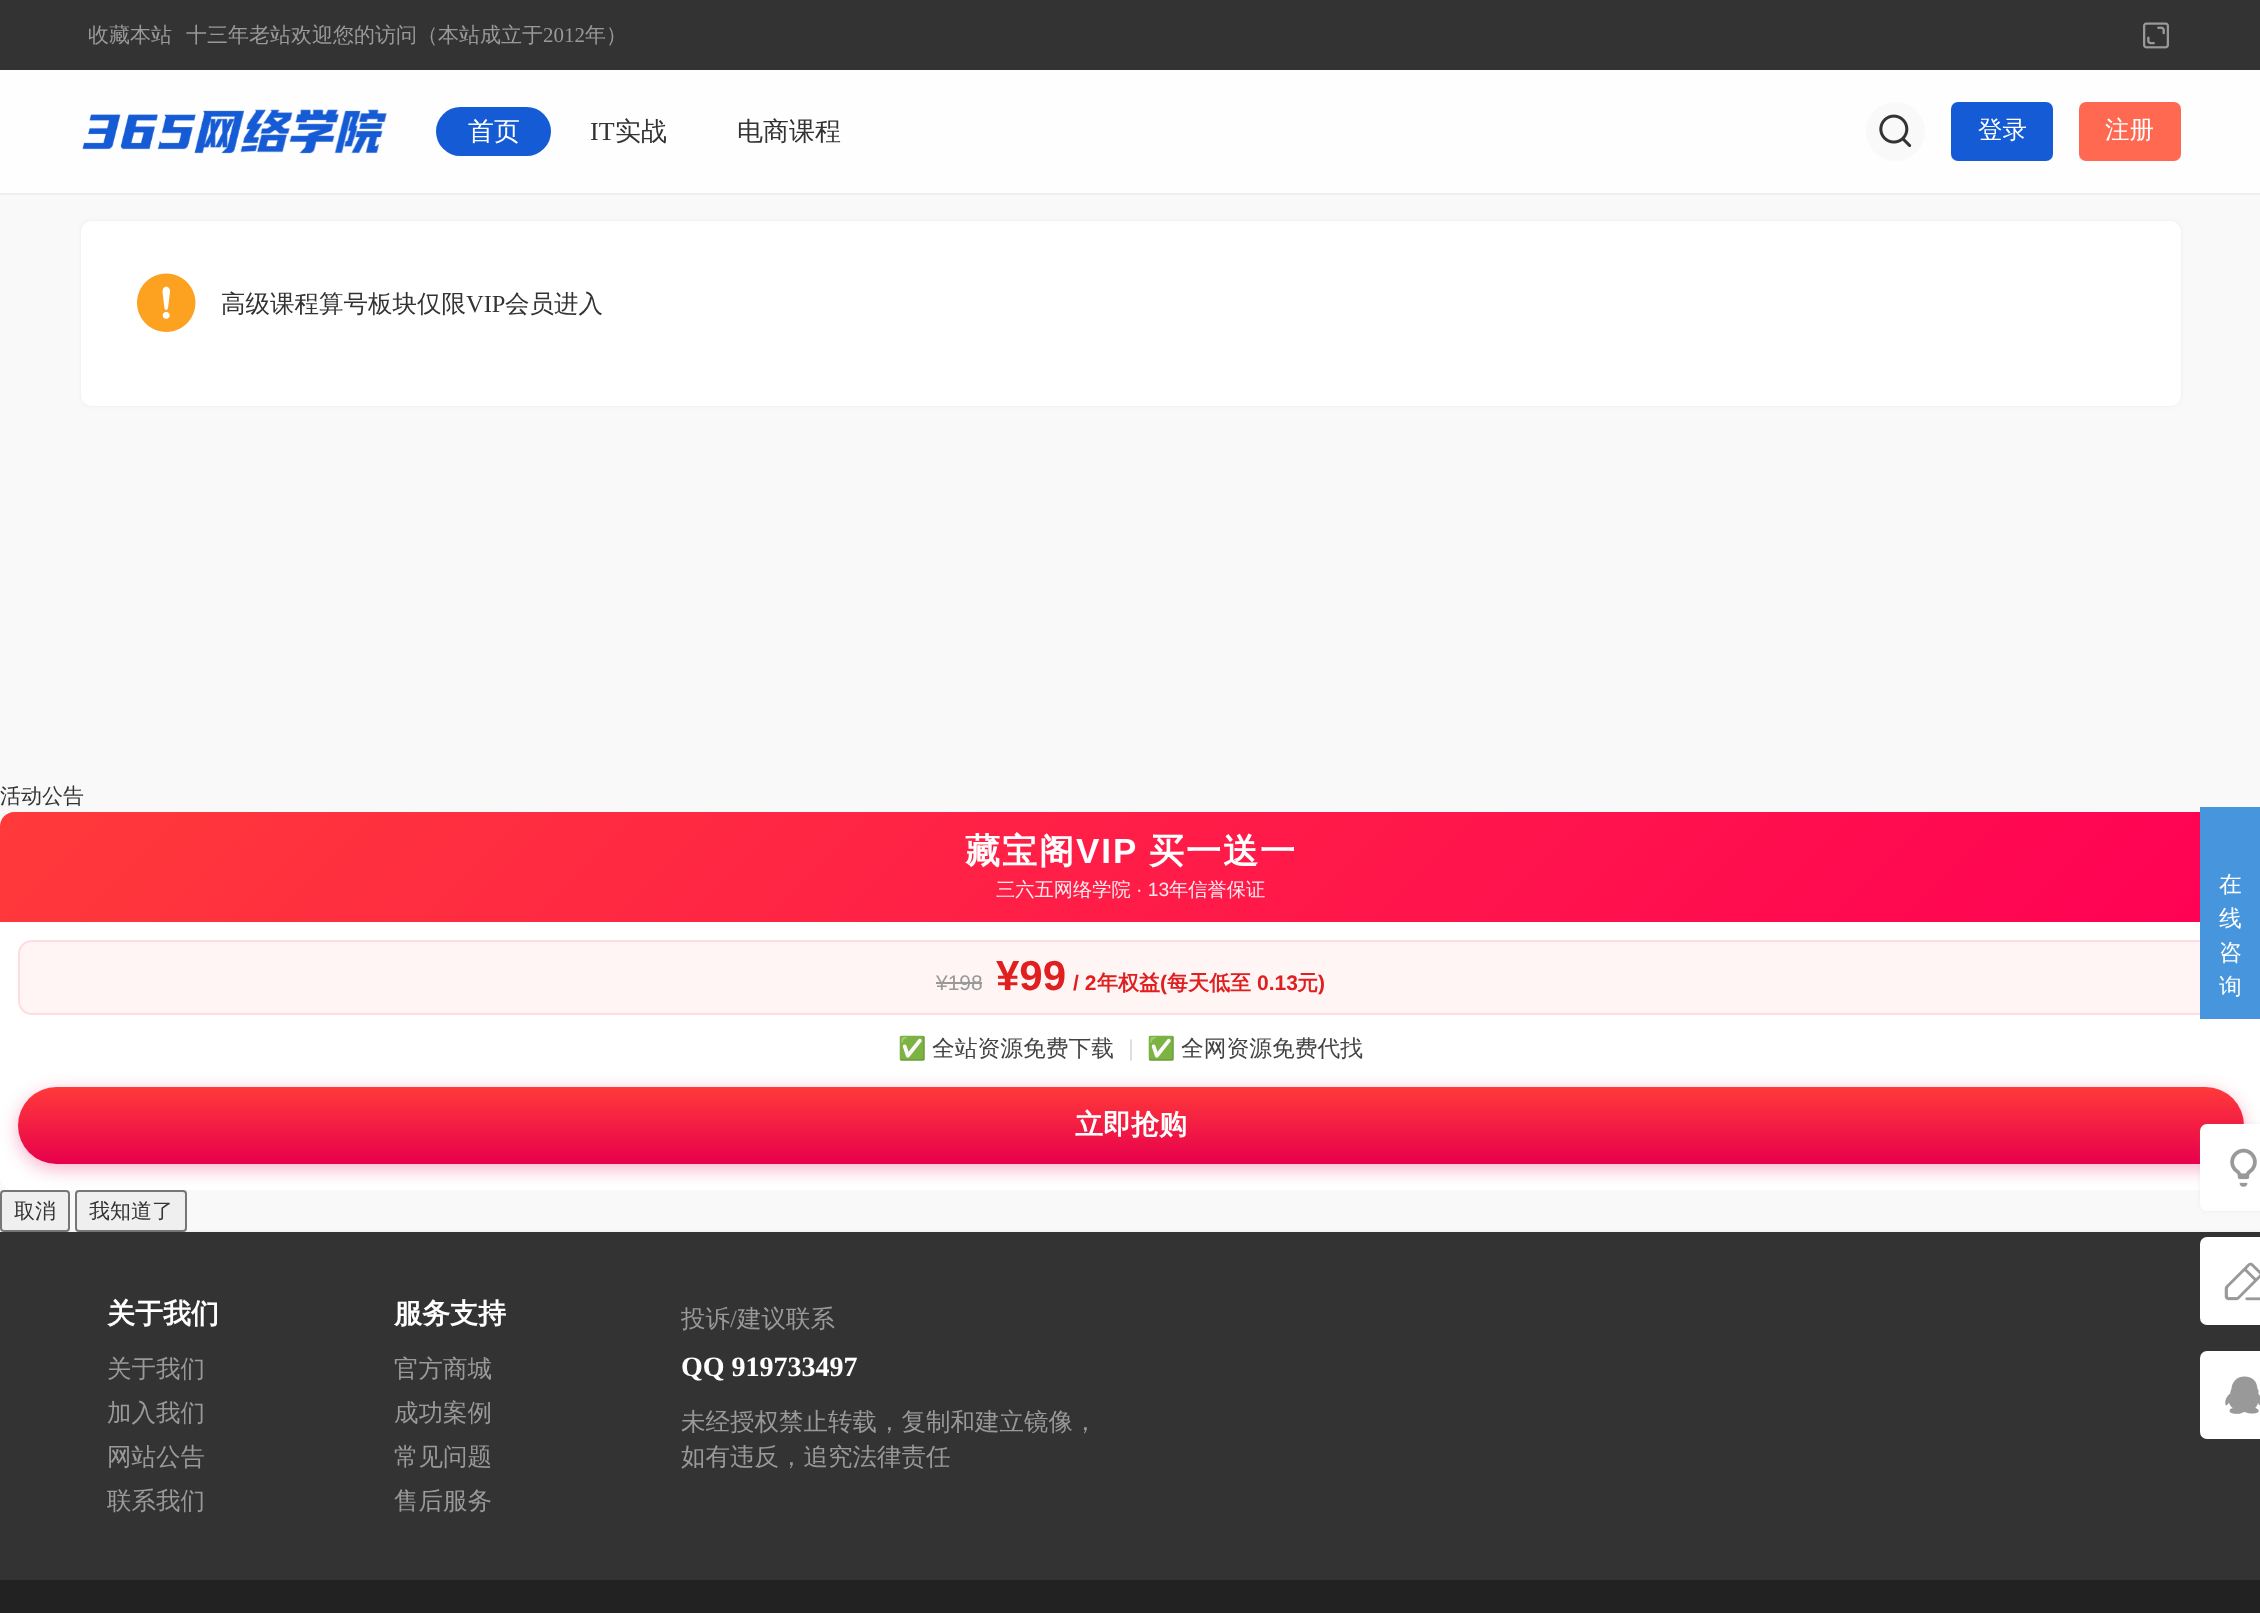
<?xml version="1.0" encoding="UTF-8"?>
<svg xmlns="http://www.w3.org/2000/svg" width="2260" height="1613">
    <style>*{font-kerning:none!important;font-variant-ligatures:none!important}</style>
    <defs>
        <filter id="blur1" x="-50%" y="-200%" width="200%" height="500%"><feGaussianBlur stdDeviation="2"/></filter>
        <linearGradient id="g1" gradientUnits="userSpaceOnUse" x1="538" y1="274" x2="1723" y2="1460"><stop offset="0" stop-color="#FF3A3A"/><stop offset="1" stop-color="#FF0055"/></linearGradient>
        <filter id="blur2" x="-50%" y="-200%" width="200%" height="500%"><feGaussianBlur stdDeviation="9"/></filter>
        <linearGradient id="g2" gradientUnits="userSpaceOnUse" x1="1131" y1="1087" x2="1131" y2="1164"><stop offset="0" stop-color="#FF3A3A"/><stop offset="1" stop-color="#E7004C"/></linearGradient>
    </defs>
    <rect width="100%" height="100%" fill="#F9F9FA"/>
    <rect x="0" y="0" width="2260" height="70" fill="#333333"/>
    <text x="88" y="42" font-family="WenQuanYi Zen Hei" font-size="21" font-weight="500" fill="#999999">收藏本站</text>
    <text x="186" y="42" font-family="WenQuanYi Zen Hei" font-size="21" font-weight="500" fill="#999999">十三年老站欢迎您的访问（本站成立于</text>
    <text x="543" y="42" font-family="Liberation Serif" font-size="21" fill="#999999">2012</text>
    <text x="585" y="42" font-family="WenQuanYi Zen Hei" font-size="21" font-weight="500" fill="#999999">年）</text>
    <image x="2143" y="22" width="26" height="27" href="img_01.png"/>
    <rect x="0" y="70" width="2260" height="123" fill="#FEFEFE"/>
    <rect x="0" y="193" width="2260" height="2" fill="#EEEEEE"/>
    <image x="82" y="109" width="305" height="45" href="img_02.png"/>
    <rect x="436" y="107" width="115" height="49" rx="24.5" fill="#155BD5"/>
    <text x="468" y="140" font-family="WenQuanYi Zen Hei" font-size="26" font-weight="500" fill="#FFFFFF">首页</text>
    <text x="590" y="140" font-family="Liberation Serif" font-size="26" fill="#333333">IT</text>
    <text x="615" y="140" font-family="WenQuanYi Zen Hei" font-size="26" font-weight="500" fill="#333333">实战</text>
    <text x="737" y="140" font-family="WenQuanYi Zen Hei" font-size="26" font-weight="500" fill="#333333">电商课程</text>
    <circle cx="1895.5" cy="131.5" r="29.5" fill="#F9F9F9"/>
    <image x="1879" y="114" width="33" height="34" href="img_03.png"/>
    <rect x="1951" y="102" width="102" height="59" rx="7" fill="#155BD5"/>
    <text x="1978" y="138" font-family="WenQuanYi Zen Hei" font-size="24.5" font-weight="500" fill="#FFFFFF">登录</text>
    <rect x="2079" y="102" width="102" height="59" rx="7" fill="#FF6951"/>
    <text x="2105" y="138" font-family="WenQuanYi Zen Hei" font-size="24.5" font-weight="500" fill="#FFFFFF">注册</text>
    <rect x="81" y="221" width="2100" height="185" rx="11" fill="#58768A" fill-opacity="0.1" filter="url(#blur1)"/>
    <rect x="81" y="221" width="2100" height="185" rx="11" fill="#FFFFFF"/>
    <image x="137" y="273" width="59" height="59" href="img_04.png"/>
    <text x="221" y="312" font-family="WenQuanYi Zen Hei" font-size="24.5" font-weight="500" fill="#333333">高级课程算号板块仅限</text>
    <text x="466" y="312" font-family="Liberation Serif" font-size="24.5" fill="#333333">VIP</text>
    <text x="505" y="312" font-family="WenQuanYi Zen Hei" font-size="24.5" font-weight="500" fill="#333333">会员进入</text>
    <text x="0" y="803" font-family="WenQuanYi Zen Hei" font-size="21" font-weight="500" fill="#333333">活动公告</text>
    <rect x="0" y="812" width="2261" height="378" rx="14" fill="#FFFFFF"/>
    <path d="M 14 812 H 2247 C 2254.5 812 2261 818.5 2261 826 V 922 H 0 V 826 C 0 818.5 6.5 812 14 812 Z" fill="url(#g1)"/>
    <text x="965" y="863" font-family="WenQuanYi Zen Hei" font-size="35" font-weight="700" letter-spacing="2" fill="#FFFFFF">藏宝阁</text>
    <text x="1076" y="863" font-family="Liberation Sans" font-size="35" font-weight="700" letter-spacing="2" fill="#FFFFFF">VIP</text>
    <text x="1149" y="863" font-family="WenQuanYi Zen Hei" font-size="35" font-weight="700" letter-spacing="2" fill="#FFFFFF">买一送一</text>
    <text x="996" y="896" font-family="WenQuanYi Zen Hei" font-size="19.25" font-weight="500" fill="#FFE8ED">三六五网络学院</text>
    <text x="1136" y="896" font-family="Liberation Sans" font-size="19.25" fill="#FFE8ED">· 13</text>
    <text x="1169" y="896" font-family="WenQuanYi Zen Hei" font-size="19.25" font-weight="500" fill="#FFE8ED">年信誉保证</text>
    <rect x="19" y="941" width="2224" height="73" rx="13" fill="#FFF5F5" stroke="#FFDCE0" stroke-width="2"/>
    <text x="936" y="990" font-family="Liberation Sans" font-size="21" fill="#999999">¥198</text>
    <rect x="936" y="982" width="46" height="2" fill="#999999"/>
    <text x="996" y="990" font-family="Liberation Sans" font-size="42" font-weight="700" fill="#E02020">¥99</text>
    <text x="1073" y="990" font-family="Liberation Sans" font-size="21" font-weight="700" fill="#E02020">/ 2</text>
    <text x="1097" y="990" font-family="WenQuanYi Zen Hei" font-size="21" font-weight="700" fill="#E02020">年权益</text>
    <text x="1160" y="990" font-family="Liberation Sans" font-size="21" font-weight="700" fill="#E02020">(</text>
    <text x="1167" y="990" font-family="WenQuanYi Zen Hei" font-size="21" font-weight="700" fill="#E02020">每天低至</text>
    <text x="1257" y="990" font-family="Liberation Sans" font-size="21" font-weight="700" fill="#E02020">0.13</text>
    <text x="1297" y="990" font-family="WenQuanYi Zen Hei" font-size="21" font-weight="700" fill="#E02020">元</text>
    <text x="1318" y="990" font-family="Liberation Sans" font-size="21" font-weight="700" fill="#E02020">)</text>
    <text x="898" y="1056" font-family="Noto Color Emoji" font-size="22.75" fill="#444444">✅</text>
    <text x="932" y="1056" font-family="WenQuanYi Zen Hei" font-size="22.75" font-weight="500" fill="#444444">全站资源免费下载</text>
    <text x="1128" y="1056" font-family="Liberation Sans" font-size="22.75" fill="#DDDDDD">|</text>
    <text x="1147" y="1056" font-family="Noto Color Emoji" font-size="22.75" fill="#444444">✅</text>
    <text x="1181" y="1056" font-family="WenQuanYi Zen Hei" font-size="22.75" font-weight="500" fill="#444444">全网资源免费代找</text>
    <rect x="0" y="1232" width="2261" height="348" fill="#58768A" fill-opacity="0.1" filter="url(#blur1)"/>
    <rect x="1" y="1191" width="68" height="40" rx="3" fill="#EFEFEF" stroke="#767676" stroke-width="2"/>
    <rect x="76" y="1191" width="110" height="40" rx="3" fill="#EFEFEF" stroke="#767676" stroke-width="2"/>
    <rect x="18" y="1092" width="2226" height="77" rx="38.5" fill="#E7004C" fill-opacity="0.3" filter="url(#blur2)"/>
    <rect x="18" y="1087" width="2226" height="77" rx="38.5" fill="url(#g2)"/>
    <text x="1075" y="1134" font-family="WenQuanYi Zen Hei" font-size="28" font-weight="700" fill="#FFFFFF">立即抢购</text>
    <text x="14" y="1218" font-family="WenQuanYi Zen Hei" font-size="21" font-weight="500" fill="#333333">取消</text>
    <text x="89" y="1218" font-family="WenQuanYi Zen Hei" font-size="21" font-weight="500" fill="#333333">我知道了</text>
    <rect x="2200" y="807" width="60" height="212" fill="#4695DD"/>
    <text font-family="WenQuanYi Zen Hei" font-size="22.75" font-weight="500" fill="#FFFFFF">
        <tspan x="2219" y="892">在</tspan>
        <tspan x="2219" y="926">线</tspan>
        <tspan x="2219" y="960">咨</tspan>
        <tspan x="2219" y="994">询</tspan>
    </text>
    <rect x="0" y="1232" width="2260" height="348" fill="#333333"/>
    <text x="107" y="1323" font-family="WenQuanYi Zen Hei" font-size="28" font-weight="700" fill="#FFFFFF">关于我们</text>
    <text font-family="WenQuanYi Zen Hei" font-size="24.5" font-weight="500" fill="#999999">
        <tspan x="107" y="1377">关于我们</tspan>
        <tspan x="107" y="1421">加入我们</tspan>
        <tspan x="107" y="1465">网站公告</tspan>
        <tspan x="107" y="1509">联系我们</tspan>
    </text>
    <text x="394" y="1323" font-family="WenQuanYi Zen Hei" font-size="28" font-weight="700" fill="#FFFFFF">服务支持</text>
    <text font-family="WenQuanYi Zen Hei" font-size="24.5" font-weight="500" fill="#999999">
        <tspan x="394" y="1377">官方商城</tspan>
        <tspan x="394" y="1421">成功案例</tspan>
        <tspan x="394" y="1465">常见问题</tspan>
        <tspan x="394" y="1509">售后服务</tspan>
    </text>
    <text x="681" y="1327" font-family="WenQuanYi Zen Hei" font-size="24.5" font-weight="500" fill="#999999">投诉</text>
    <text x="730" y="1327" font-family="Liberation Serif" font-size="24.5" fill="#999999">/</text>
    <text x="737" y="1327" font-family="WenQuanYi Zen Hei" font-size="24.5" font-weight="500" fill="#999999">建议联系</text>
    <text x="681" y="1376" font-family="Liberation Serif" font-size="28" font-weight="700" fill="#FFFFFF">QQ 919733497</text>
    <text font-family="WenQuanYi Zen Hei" font-size="24.5" font-weight="500" fill="#999999">
        <tspan x="681" y="1430">未经授权禁止转载，复制和建立镜像，</tspan>
        <tspan x="681" y="1465">如有违反，追究法律责任</tspan>
    </text>
    <rect x="2200" y="1124" width="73" height="87" rx="7" fill="#58768A" fill-opacity="0.1" filter="url(#blur1)"/>
    <rect x="2200" y="1124" width="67" height="87" rx="7" fill="#FFFFFF"/>
    <image x="2230" y="1148" width="27" height="39" href="img_05.png"/>
    <rect x="2200" y="1237" width="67" height="88" rx="7" fill="#FFFFFF"/>
    <image x="2224" y="1262" width="36" height="39" href="img_06.png"/>
    <rect x="2200" y="1351" width="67" height="88" rx="7" fill="#FFFFFF"/>
    <image x="2225" y="1376" width="35" height="38" href="img_07.png"/>
    <rect x="0" y="1580" width="2260" height="33" fill="#222222"/>
</svg>
